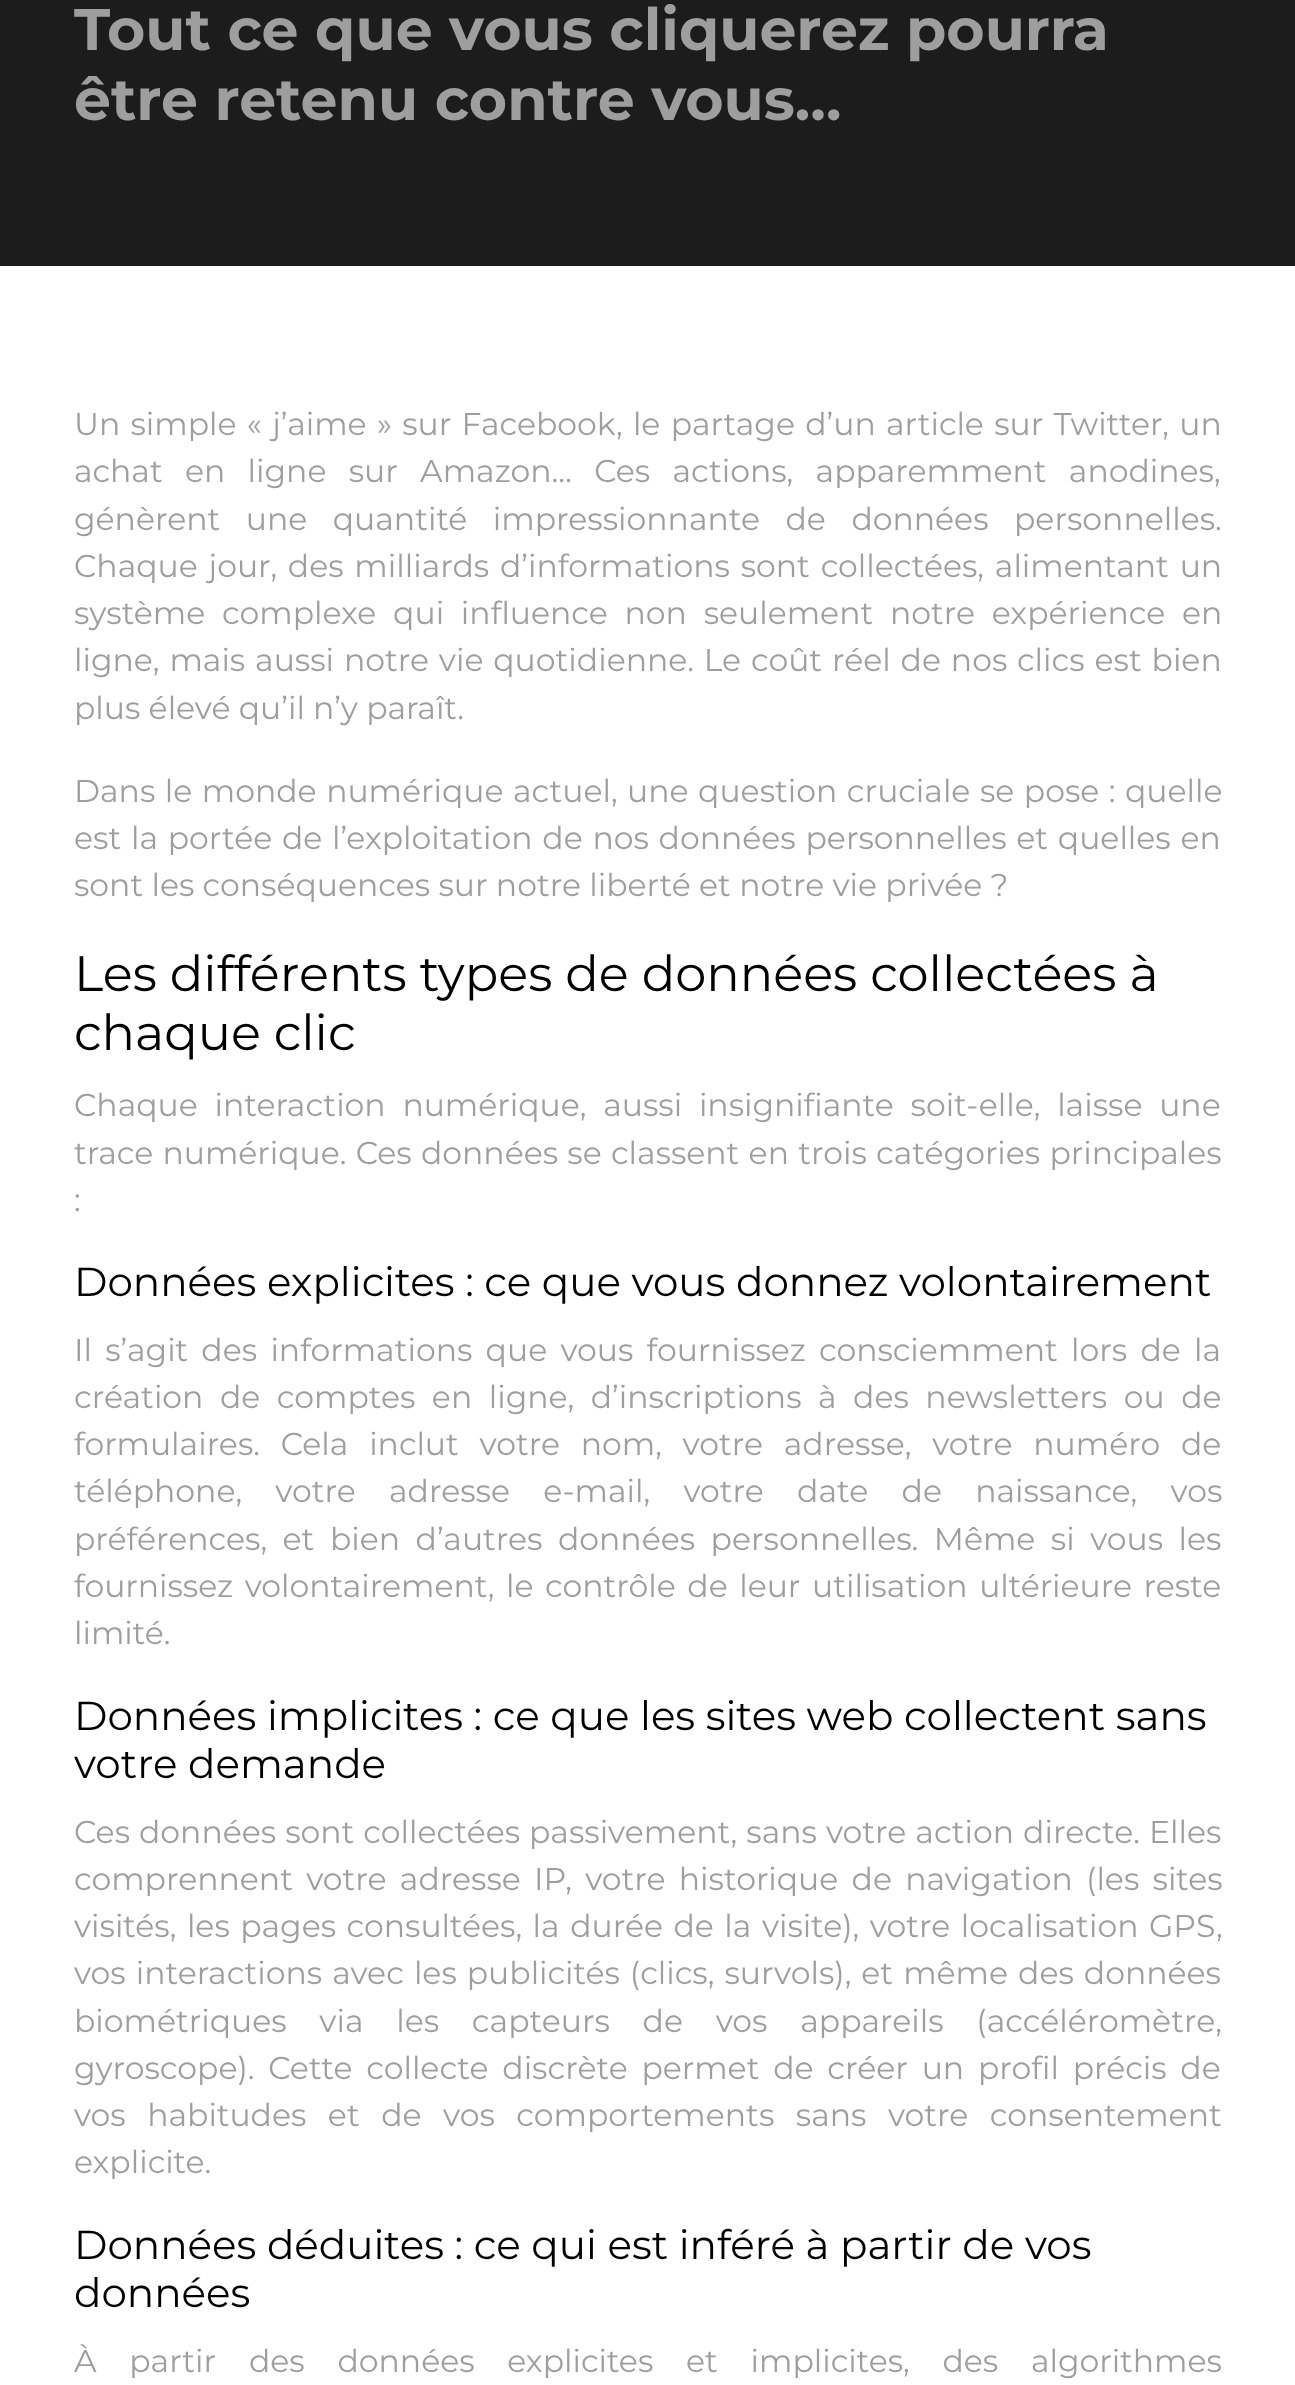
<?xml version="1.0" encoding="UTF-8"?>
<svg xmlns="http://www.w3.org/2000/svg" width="1295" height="2385">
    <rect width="100%" height="100%" fill="#FFFFFF"/>
    <rect x="0" y="0" width="1295" height="266" fill="#1C1C1C"/>
    <text font-family="Montserrat" font-size="58.5" font-weight="700" fill="#9E9E9E">
        <tspan x="74" y="50">Tout ce que vous cliquerez pourra</tspan>
        <tspan x="74" y="120">être retenu contre vous…</tspan>
    </text>
    <text font-family="Montserrat" font-size="31.5" fill="#9E9E9E">
        <tspan x="74" y="435" word-spacing="2">Un simple « j’aime » sur Facebook, le partage d’un article sur Twitter, un</tspan>
        <tspan x="74" y="482" word-spacing="14">achat en ligne sur Amazon… Ces actions, apparemment anodines,</tspan>
        <tspan x="74" y="530" word-spacing="17.25">génèrent une quantité impressionnante de données personnelles.</tspan>
        <tspan x="74" y="577" word-spacing="2.5">Chaque jour, des milliards d’informations sont collectées, alimentant un</tspan>
        <tspan x="74" y="624" word-spacing="8.5">système complexe qui influence non seulement notre expérience en</tspan>
        <tspan x="74" y="671" word-spacing="1.6">ligne, mais aussi notre vie quotidienne. Le coût réel de nos clics est bien</tspan>
        <tspan x="74" y="719">plus élevé qu’il n’y paraît.</tspan>
    </text>
    <text font-family="Montserrat" font-size="31.5" fill="#9E9E9E">
        <tspan x="74" y="802" word-spacing="1.25">Dans le monde numérique actuel, une question cruciale se pose : quelle</tspan>
        <tspan x="74" y="849" word-spacing="1.5">est la portée de l’exploitation de nos données personnelles et quelles en</tspan>
        <tspan x="74" y="896">sont les conséquences sur notre liberté et notre vie privée ?</tspan>
    </text>
    <text font-family="Montserrat" font-size="49.5" fill="#000000">
        <tspan x="74" y="991">Les différents types de données collectées à</tspan>
        <tspan x="74" y="1050">chaque clic</tspan>
    </text>
    <text font-family="Montserrat" font-size="31.5" fill="#9E9E9E">
        <tspan x="74" y="1116" word-spacing="8.5">Chaque interaction numérique, aussi insignifiante soit-elle, laisse une</tspan>
        <tspan x="74" y="1164" word-spacing="1">trace numérique. Ces données se classent en trois catégories principales</tspan>
        <tspan x="74" y="1211">:</tspan>
    </text>
    <text x="74" y="1296" font-family="Montserrat" font-size="40.5" fill="#000000">Données explicites : ce que vous donnez volontairement</text>
    <text font-family="Montserrat" font-size="31.5" fill="#9E9E9E">
        <tspan x="74" y="1361" word-spacing="5">Il s’agit des informations que vous fournissez consciemment lors de la</tspan>
        <tspan x="74" y="1408" word-spacing="8.25">création de comptes en ligne, d’inscriptions à des newsletters ou de</tspan>
        <tspan x="74" y="1455" word-spacing="12.5">formulaires. Cela inclut votre nom, votre adresse, votre numéro de</tspan>
        <tspan x="74" y="1502" word-spacing="25">téléphone, votre adresse e-mail, votre date de naissance, vos</tspan>
        <tspan x="74" y="1550" word-spacing="7.25">préférences, et bien d’autres données personnelles. Même si vous les</tspan>
        <tspan x="74" y="1597" word-spacing="3.25">fournissez volontairement, le contrôle de leur utilisation ultérieure reste</tspan>
        <tspan x="74" y="1644">limité.</tspan>
    </text>
    <text font-family="Montserrat" font-size="40.5" fill="#000000">
        <tspan x="74" y="1730">Données implicites : ce que les sites web collectent sans</tspan>
        <tspan x="74" y="1778">votre demande</tspan>
    </text>
    <text font-family="Montserrat" font-size="31.5" fill="#9E9E9E">
        <tspan x="74" y="1843" word-spacing="0.75">Ces données sont collectées passivement, sans votre action directe. Elles</tspan>
        <tspan x="74" y="1890" word-spacing="5">comprennent votre adresse IP, votre historique de navigation (les sites</tspan>
        <tspan x="74" y="1937" word-spacing="2.25">visités, les pages consultées, la durée de la visite), votre localisation GPS,</tspan>
        <tspan x="74" y="1984" word-spacing="1.75">vos interactions avec les publicités (clics, survols), et même des données</tspan>
        <tspan x="74" y="2032" word-spacing="24.5">biométriques via les capteurs de vos appareils (accéléromètre,</tspan>
        <tspan x="74" y="2079" word-spacing="5.5">gyroscope). Cette collecte discrète permet de créer un profil précis de</tspan>
        <tspan x="74" y="2126" word-spacing="13.25">vos habitudes et de vos comportements sans votre consentement</tspan>
        <tspan x="74" y="2173">explicite.</tspan>
    </text>
    <text font-family="Montserrat" font-size="40.5" fill="#000000">
        <tspan x="74" y="2259">Données déduites : ce qui est inféré à partir de vos</tspan>
        <tspan x="74" y="2307">données</tspan>
    </text>
    <text x="74" y="2372" word-spacing="24.5" font-family="Montserrat" font-size="31.5" fill="#9E9E9E">À partir des données explicites et implicites, des algorithmes</text>
</svg>
